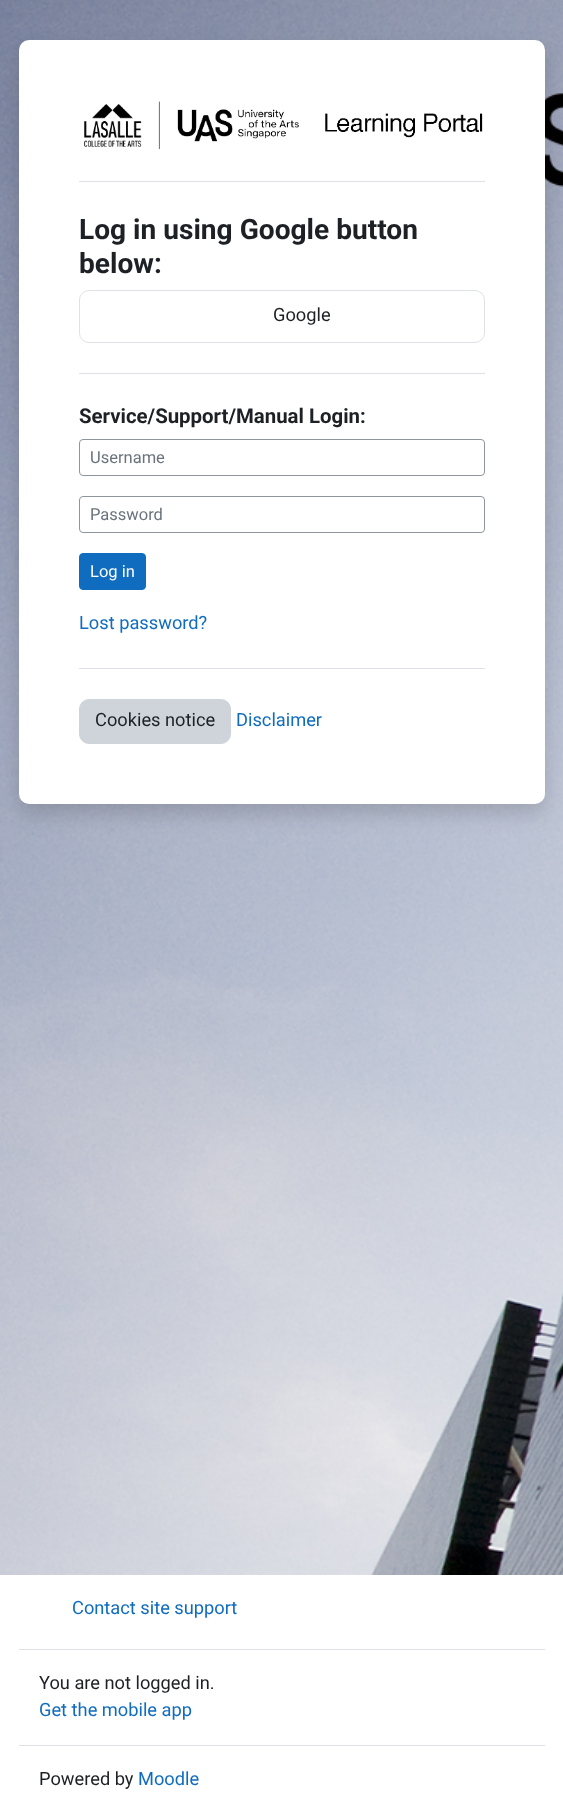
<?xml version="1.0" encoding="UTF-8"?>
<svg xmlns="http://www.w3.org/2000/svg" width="563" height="1813">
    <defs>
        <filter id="blur1" x="-50%" y="-200%" width="200%" height="500%"><feGaussianBlur stdDeviation="10"/></filter>
    </defs>
    <rect width="100%" height="100%" fill="#FFFFFF"/>
    <image x="0" y="0" width="563" height="1575" href="img_01.png"/>
    <rect x="19" y="50" width="526" height="764" rx="10" fill="#000000" fill-opacity="0.15" filter="url(#blur1)"/>
    <rect x="19" y="40" width="526" height="764" rx="10" fill="#FFFFFF"/>
    <image x="84" y="101" width="399" height="49" href="img_02.png"/>
    <rect x="79" y="181" width="406" height="1" fill="#DEE2E6"/>
    <text font-family="Roboto" font-size="28.1" font-weight="700" fill="#1D2125">
        <tspan x="79" y="239">Log in using Google button</tspan>
        <tspan x="79" y="273">below:</tspan>
    </text>
    <rect x="79.5" y="290.5" width="405" height="52" rx="9.5" fill="none" stroke="#DEE2E6"/>
    <text x="273" y="321" font-family="Roboto" font-size="18.25" fill="#1D2125">Google</text>
    <rect x="79" y="373" width="406" height="1" fill="#DEE2E6"/>
    <text x="79" y="423" font-family="Roboto" font-size="20.4" font-weight="700" fill="#1D2125">Service/Support/Manual Login:</text>
    <rect x="79.5" y="439.5" width="405" height="36" rx="3.5" fill="none" stroke="#8F959E"/>
    <text x="90" y="463" font-family="Roboto" font-size="16.5" fill="#6A737B">Username</text>
    <rect x="79.5" y="496.5" width="405" height="36" rx="3.5" fill="none" stroke="#8F959E"/>
    <text x="90" y="520" font-family="Roboto" font-size="16.5" fill="#6A737B">Password</text>
    <rect x="79.5" y="553.5" width="66" height="36" rx="3.5" fill="#0F6CBF" stroke="#0F6CBF"/>
    <text x="90" y="577" font-family="Roboto" font-size="16.5" fill="#FFFFFF">Log in</text>
    <text x="79" y="629" font-family="Roboto" font-size="18.25" fill="#0F6CBF">Lost password?</text>
    <rect x="79" y="668" width="406" height="1" fill="#DEE2E6"/>
    <rect x="79.5" y="699.5" width="151" height="44" rx="9.5" fill="#CED4DA" stroke="#CED4DA"/>
    <text x="95" y="726" font-family="Roboto" font-size="18.25" fill="#1D2125">Cookies notice</text>
    <text x="236" y="726" font-family="Roboto" font-size="18.25" fill="#0F6CBF">Disclaimer</text>
    <rect x="19" y="1649" width="526" height="1" fill="#DEE2E6"/>
    <text x="72" y="1614" font-family="Roboto" font-size="18.25" fill="#0F6CBF">Contact site support</text>
    <rect x="19" y="1745" width="526" height="1" fill="#DEE2E6"/>
    <text x="39" y="1689" font-family="Roboto" font-size="18.25" fill="#1D2125">You are not logged in.</text>
    <text x="39" y="1716" font-family="Roboto" font-size="18.25" fill="#0F6CBF">Get the mobile app</text>
    <text x="39" y="1785" font-family="Roboto" font-size="18.25" fill="#1D2125">Powered by</text>
    <text x="138" y="1785" font-family="Roboto" font-size="18.25" fill="#0F6CBF">Moodle</text>
</svg>
